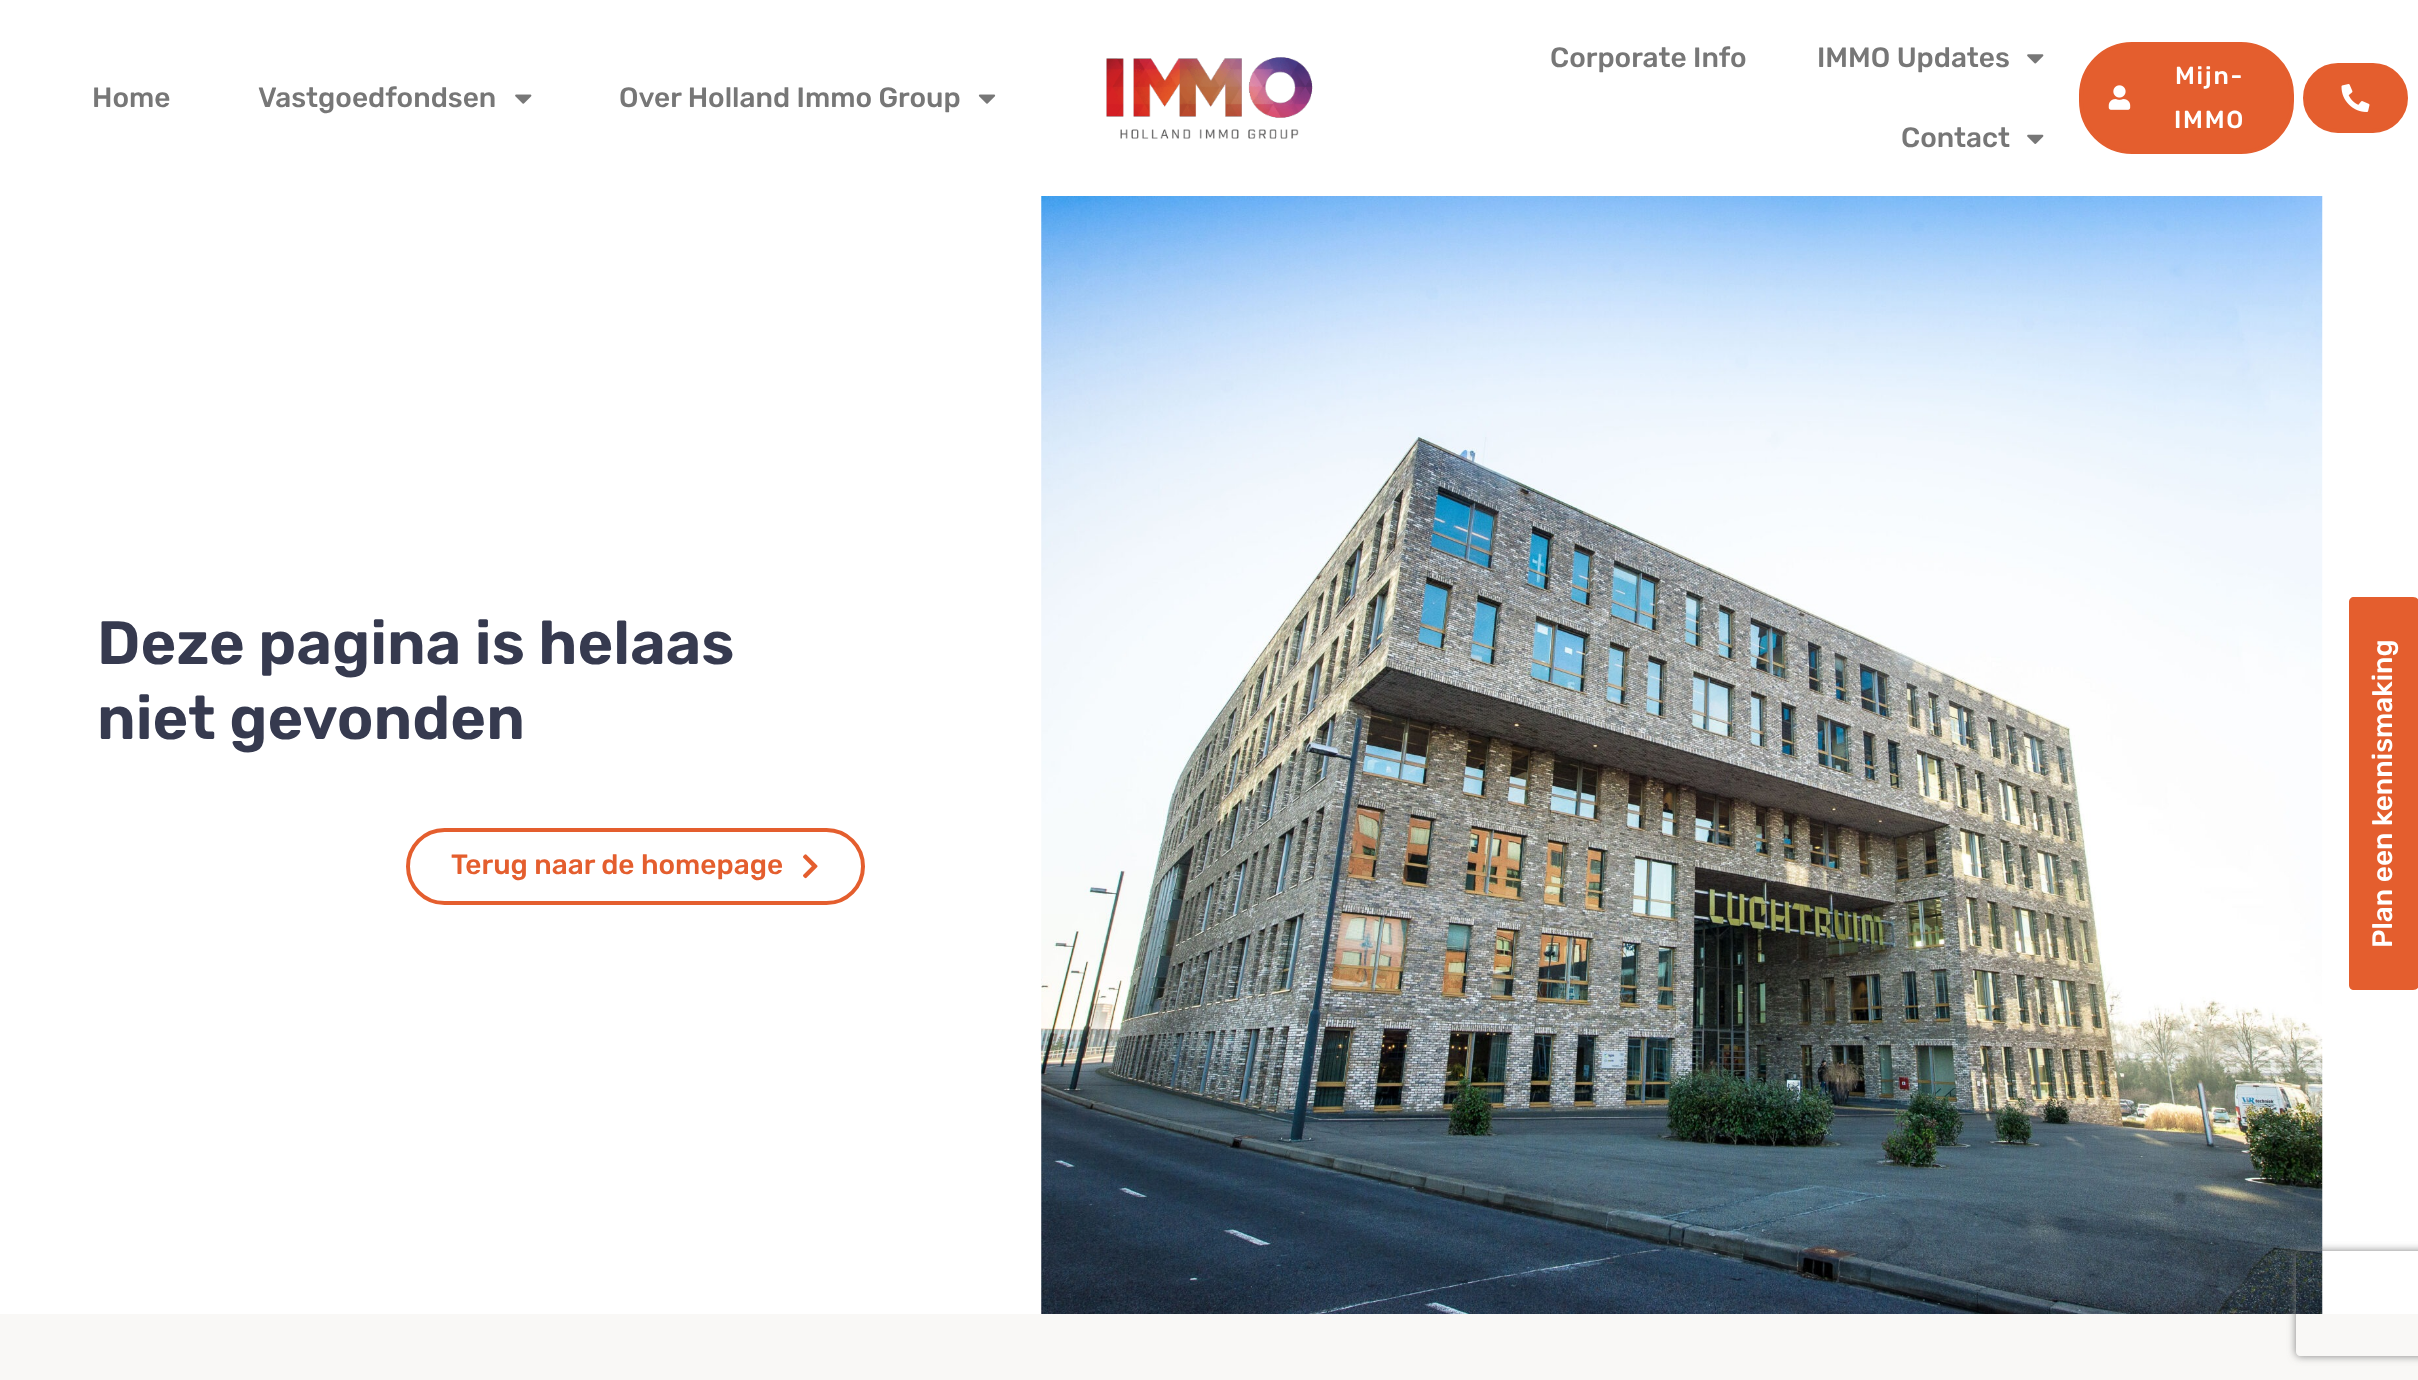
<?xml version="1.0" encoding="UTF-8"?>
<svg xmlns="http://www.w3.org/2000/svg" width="2418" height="1380">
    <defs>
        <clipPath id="clip1"><path d="M 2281 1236 H 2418 V 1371 H 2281 Z M 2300 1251 H 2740 C 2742 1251 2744 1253 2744 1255 V 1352 C 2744 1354 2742 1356 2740 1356 H 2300 C 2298 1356 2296 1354 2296 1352 V 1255 C 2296 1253 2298 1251 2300 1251 Z" clip-rule="evenodd"/></clipPath>
        <filter id="blur1" x="-50%" y="-200%" width="200%" height="500%"><feGaussianBlur stdDeviation="4.5"/></filter>
    </defs>
    <rect width="100%" height="100%" fill="#FFFFFF"/>
    <text x="92" y="107" font-family="Rubik" font-size="28" font-weight="500" fill="#777777">Home</text>
    <text x="258" y="107" font-family="Rubik" font-size="28" font-weight="500" fill="#777777">Vastgoedfondsen</text>
    <image x="515" y="94" width="17" height="10" href="img_01.png"/>
    <text x="619" y="107" font-family="Rubik" font-size="28" font-weight="500" fill="#777777">Over Holland Immo Group</text>
    <image x="978" y="94" width="18" height="10" href="img_02.png"/>
    <image x="1106" y="57" width="207" height="82" href="img_03.png"/>
    <text x="1550" y="67" font-family="Rubik" font-size="28" font-weight="500" fill="#777777">Corporate Info</text>
    <text x="1817" y="67" font-family="Rubik" font-size="28" font-weight="500" fill="#777777">IMMO Updates</text>
    <image x="2027" y="54" width="17" height="10" href="img_04.png"/>
    <text x="1901" y="147" font-family="Rubik" font-size="28" font-weight="500" fill="#777777">Contact</text>
    <image x="2027" y="134" width="17" height="10" href="img_05.png"/>
    <rect x="2081" y="44" width="211" height="108" rx="51" fill="#E45E2E" stroke="#E45E2E" stroke-width="4"/>
    <text x="2175" y="84" font-family="Rubik" font-size="24.5" font-weight="500" letter-spacing="1.75" fill="#FFFFFF">Mijn-</text>
    <image x="2108" y="85" width="23" height="25" href="img_06.png"/>
    <text x="2174" y="128" font-family="Rubik" font-size="24.5" font-weight="500" letter-spacing="1.75" fill="#FFFFFF">IMMO</text>
    <rect x="2305" y="65" width="101" height="66" rx="33" fill="#E45E2E" stroke="#E45E2E" stroke-width="4"/>
    <image x="2341" y="84" width="29" height="28" href="img_07.png"/>
    <path d="M 2349 985 V 602 C 2349 599 2351 597 2354 597 H 2413 C 2416 597 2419 599 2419 602 V 985 C 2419 988 2416 990 2413 990 H 2354 C 2351 990 2349 988 2349 985 Z" fill="#E45E2E"/>
    <text x="2392" y="948" transform="rotate(-90 2392 948)" font-family="Rubik" font-size="28" font-weight="500" fill="#FFFFFF">Plan een kennismaking</text>
    <text font-family="Rubik" font-size="61.25" font-weight="600" fill="#363A4F">
        <tspan x="97" y="664">Deze pagina is helaas</tspan>
        <tspan x="97" y="739">niet gevonden</tspan>
    </text>
    <rect x="408" y="830" width="455" height="73" rx="36.5" fill="none" stroke="#E45E2E" stroke-width="4"/>
    <text x="451" y="874" font-family="Rubik" font-size="28" font-weight="500" fill="#E45E2E">Terug naar de homepage</text>
    <image x="803" y="854" width="15" height="25" href="img_08.png"/>
    <image x="1041" y="196" width="1282" height="1118" href="img_09.png"/>
    <rect x="0" y="1314" width="2418" height="66" fill="#F9F8F6"/>
    <g clip-path="url(#clip1)">
        <rect x="2296" y="1251" width="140" height="105" rx="4" fill="#808080" filter="url(#blur1)"/>
    </g>
</svg>
